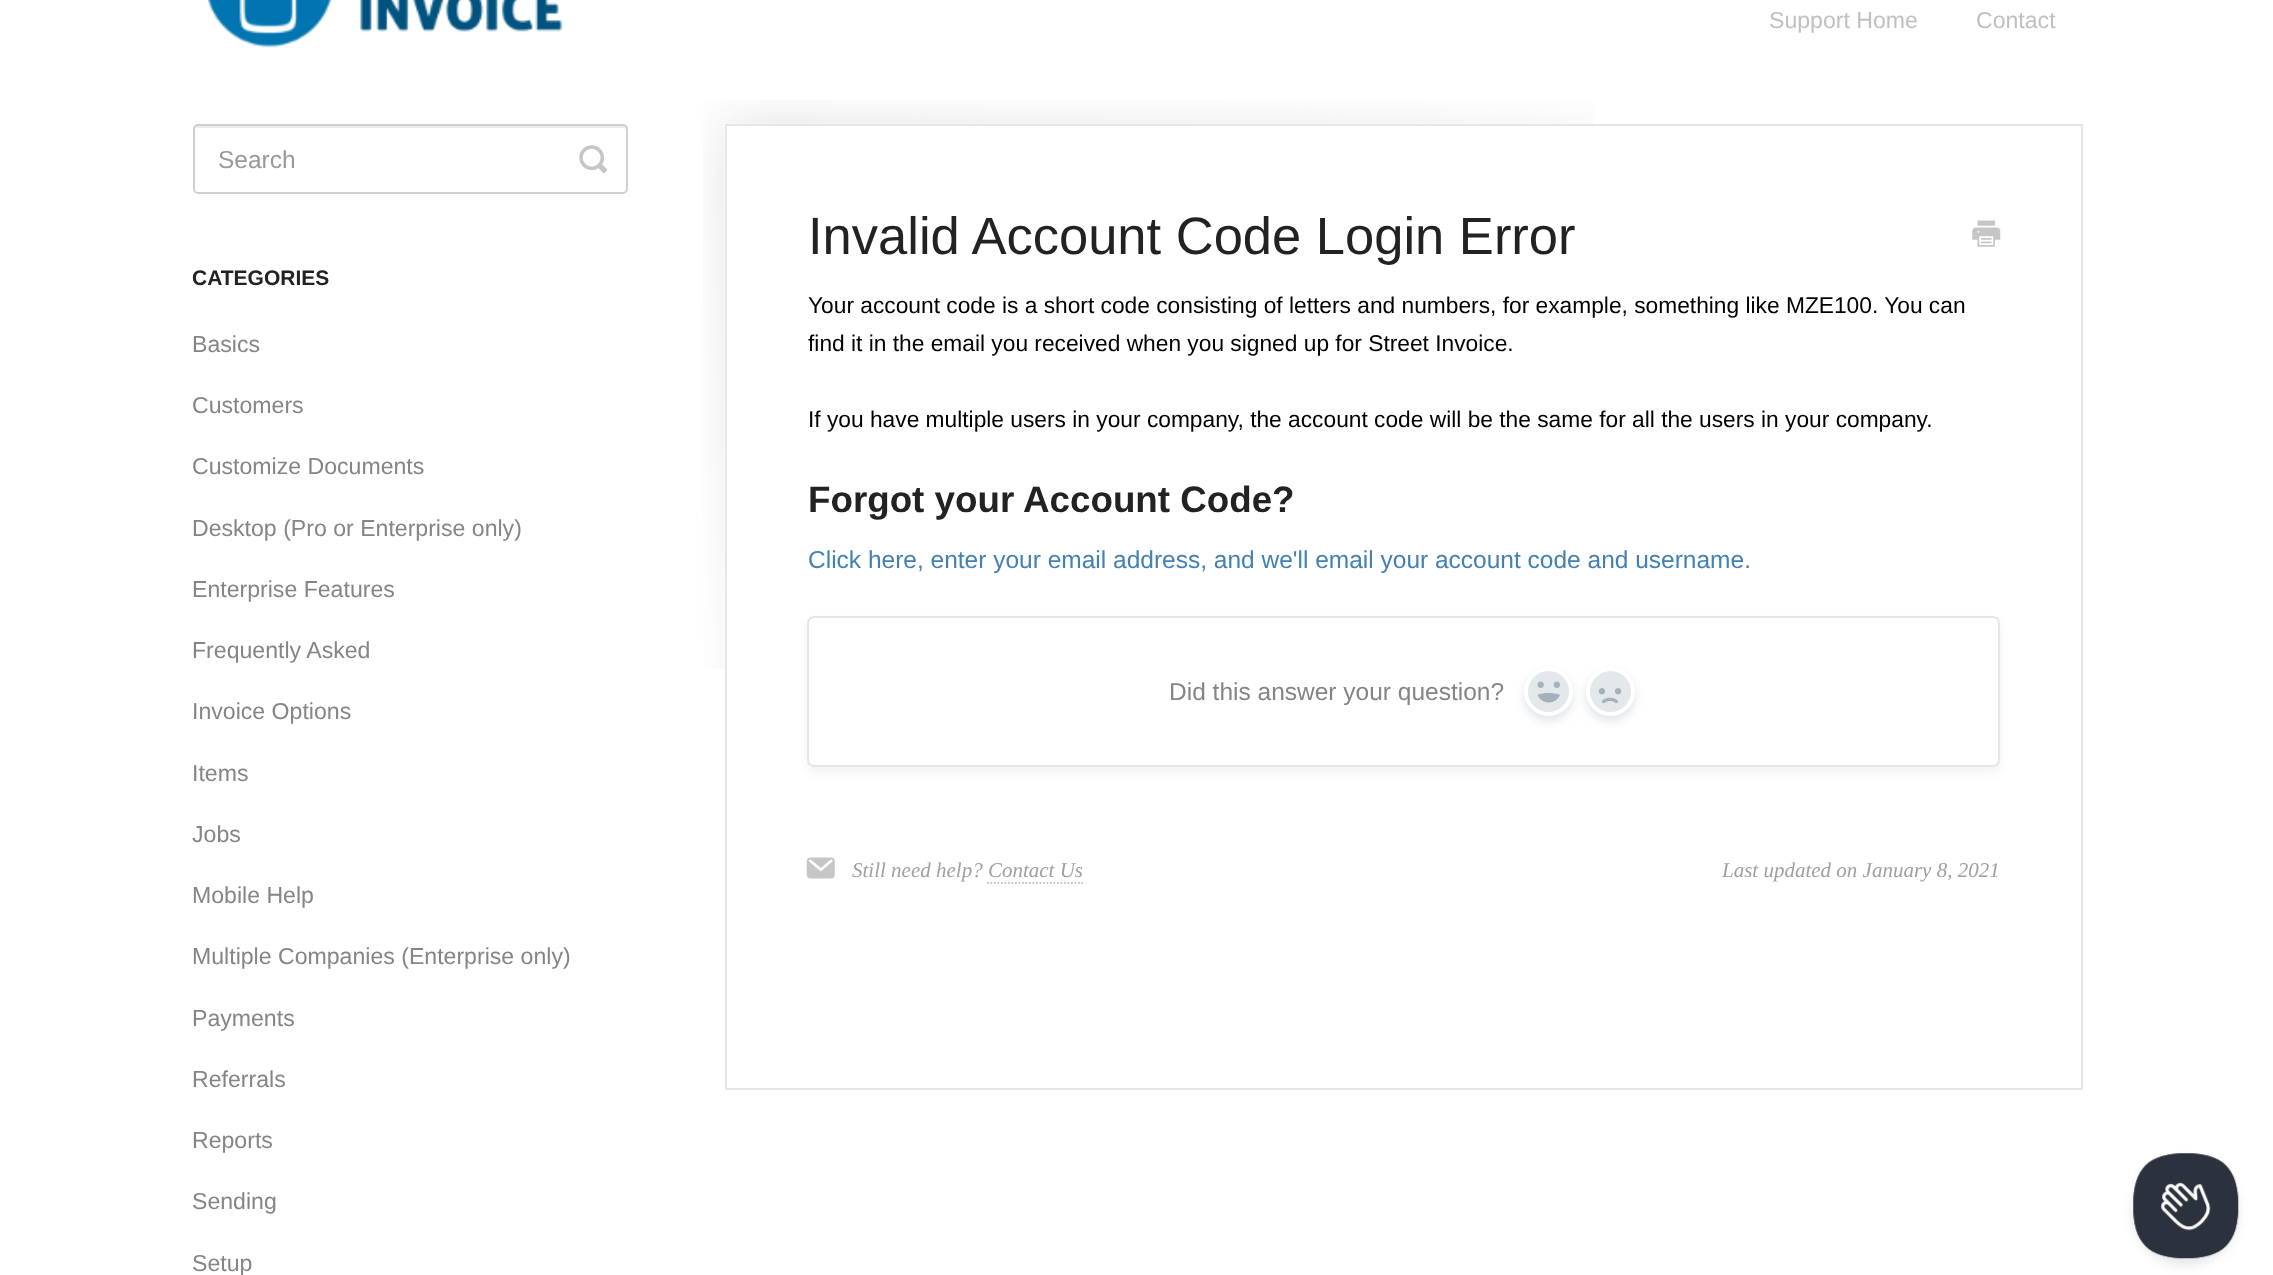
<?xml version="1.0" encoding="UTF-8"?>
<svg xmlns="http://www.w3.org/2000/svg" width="2273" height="1275">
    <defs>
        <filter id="blur1" x="-50%" y="-200%" width="200%" height="500%"><feGaussianBlur stdDeviation="5"/></filter>
        <filter id="blur2" x="-50%" y="-200%" width="200%" height="500%"><feGaussianBlur stdDeviation="6"/></filter>
    </defs>
    <rect width="100%" height="100%" fill="#FFFFFF"/>
    <image x="207" y="0" width="356" height="48" href="img_01.png"/>
    <text x="1769" y="28" font-family="Liberation Sans" font-size="23.1" fill="#C0C0C0">Support Home</text>
    <text x="1976" y="28" font-family="Liberation Sans" font-size="23.1" fill="#C0C0C0">Contact</text>
    <path d="M 198 128 H 623 C 625 128 626 129 626 131 V 192 C 627 191 627 190 627 189 V 130 C 627 128 625 126 623 126 H 198 C 196 126 194 128 194 130 V 131 C 194 129 196 128 198 128 Z" fill="#ECECEC"/>
    <rect x="194" y="125" width="433" height="68" rx="4" fill="none" stroke="#D0D0D0" stroke-width="2"/>
    <text x="218" y="168" font-family="Liberation Sans" font-size="24.5" fill="#999999">Search</text>
    <image x="579" y="145" width="29" height="29" href="img_02.png"/>
    <text x="192" y="285" font-family="Liberation Sans" font-size="21" font-weight="700" fill="#222222">CATEGORIES</text>
    <text x="192" y="352" font-family="Liberation Sans" font-size="23.1" fill="#858585">Basics</text>
    <text x="192" y="413" font-family="Liberation Sans" font-size="23.1" fill="#858585">Customers</text>
    <text x="192" y="474" font-family="Liberation Sans" font-size="23.1" fill="#858585">Customize Documents</text>
    <text x="192" y="536" font-family="Liberation Sans" font-size="23.1" fill="#858585">Desktop (Pro or Enterprise only)</text>
    <text x="192" y="597" font-family="Liberation Sans" font-size="23.1" fill="#858585">Enterprise Features</text>
    <text x="192" y="658" font-family="Liberation Sans" font-size="23.1" fill="#858585">Frequently Asked</text>
    <text x="192" y="719" font-family="Liberation Sans" font-size="23.1" fill="#858585">Invoice Options</text>
    <text x="192" y="781" font-family="Liberation Sans" font-size="23.1" fill="#858585">Items</text>
    <text x="192" y="842" font-family="Liberation Sans" font-size="23.1" fill="#858585">Jobs</text>
    <text x="192" y="903" font-family="Liberation Sans" font-size="23.1" fill="#858585">Mobile Help</text>
    <text x="192" y="964" font-family="Liberation Sans" font-size="23.1" fill="#858585">Multiple Companies (Enterprise only)</text>
    <text x="192" y="1026" font-family="Liberation Sans" font-size="23.1" fill="#858585">Payments</text>
    <text x="192" y="1087" font-family="Liberation Sans" font-size="23.1" fill="#858585">Referrals</text>
    <text x="192" y="1148" font-family="Liberation Sans" font-size="23.1" fill="#858585">Reports</text>
    <text x="192" y="1209" font-family="Liberation Sans" font-size="23.1" fill="#858585">Sending</text>
    <text x="192" y="1271" font-family="Liberation Sans" font-size="23.1" fill="#858585">Setup</text>
    <image x="703" y="100" width="890" height="569" href="img_03.png"/>
    <rect x="726" y="125" width="1356" height="964" fill="none" stroke="#E9E5E5" stroke-width="2"/>
    <text x="808" y="254" font-family="Liberation Sans" font-size="52.5" fill="#222222">Invalid Account Code Login Error</text>
    <image x="1972" y="220" width="29" height="27" href="img_04.png"/>
    <text font-family="Liberation Sans" font-size="22.75" fill="#000000">
        <tspan x="808" y="313">Your account code is a short code consisting of letters and numbers, for example, something like MZE100. You can</tspan>
        <tspan x="808" y="351">find it in the email you received when you signed up for Street Invoice.</tspan>
    </text>
    <text x="808" y="427" font-family="Liberation Sans" font-size="22.75" fill="#000000">If you have multiple users in your company, the account code will be the same for all the users in your company.</text>
    <text x="808" y="512" font-family="Liberation Sans" font-size="36.75" font-weight="700" fill="#222222">Forgot your Account Code?</text>
    <text x="808" y="568" font-family="Liberation Sans" font-size="24.5" fill="#4381B5">Click here, enter your email address, and we'll email your account code and username.</text>
    <rect x="807" y="621" width="1193" height="151" rx="7" fill="#000000" fill-opacity="0.05" filter="url(#blur1)"/>
    <rect x="808" y="617" width="1191" height="149" rx="6" fill="#FFFFFF" stroke="#E9E5E5" stroke-width="2"/>
    <text x="1169" y="700" font-family="Liberation Sans" font-size="24.5" fill="#858585">Did this answer your question?</text>
    <rect x="1524" y="672" width="49" height="49" rx="24.5" fill="#C1CBD4" fill-opacity="0.5" filter="url(#blur1)"/>
    <circle cx="1548.5" cy="691.5" r="22.5" fill="#E3E8EB" stroke="#FFFFFF" stroke-width="4"/>
    <image x="1537" y="681" width="23" height="22" href="img_05.png"/>
    <rect x="1586" y="672" width="49" height="49" rx="24.5" fill="#C1CBD4" fill-opacity="0.5" filter="url(#blur1)"/>
    <circle cx="1610.5" cy="691.5" r="22.5" fill="#E3E8EB" stroke="#FFFFFF" stroke-width="4"/>
    <image x="1598" y="688" width="24" height="16" href="img_06.png"/>
    <image x="806" y="857" width="29" height="22" href="img_07.png"/>
    <text x="852" y="877" font-family="Liberation Serif" font-size="21" font-style="italic" fill="#A0A0A0">Still need help? Contact Us</text>
    <path d="M 987 883 H 1083" fill="none" stroke="#C5C5C5" stroke-width="1.8" stroke-dasharray="1.75 1.75"/>
    <text x="1722" y="877" font-family="Liberation Serif" font-size="21" font-style="italic" fill="#A0A0A0">Last updated on January 8, 2021</text>
    <rect x="2133" y="1160" width="105" height="105" rx="52.5" fill="#000000" fill-opacity="0.1" filter="url(#blur2)"/>
    <image x="2133" y="1153" width="106" height="106" href="img_08.png"/>
</svg>
